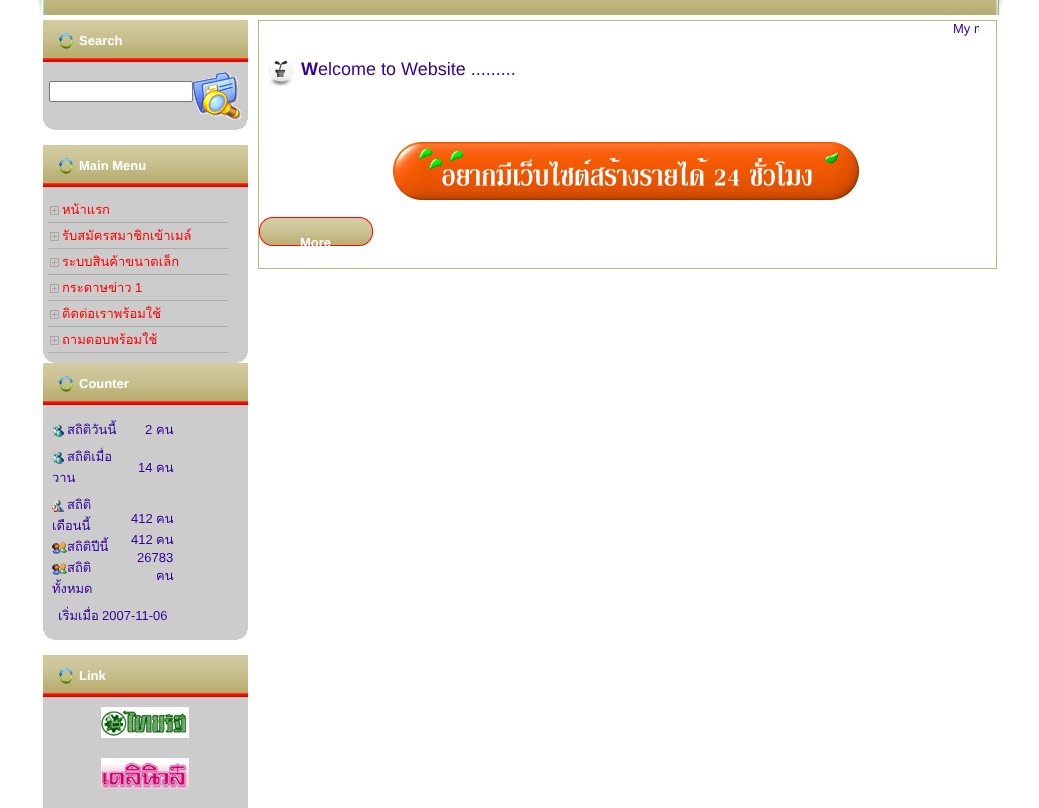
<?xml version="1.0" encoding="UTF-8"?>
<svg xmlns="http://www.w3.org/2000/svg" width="1039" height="808">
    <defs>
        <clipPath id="clip1"><rect x="259" y="21" width="720" height="30"/></clipPath>
    </defs>
    <rect width="100%" height="100%" fill="#FFFFFF"/>
    <image x="37" y="0" width="7" height="15" href="img_01.png"/>
    <image x="44" y="0" width="952" height="15" href="img_02.png"/>
    <image x="996" y="0" width="7" height="15" href="img_03.png"/>
    <image x="43" y="20" width="205" height="42" href="img_04.png"/>
    <image x="58" y="33" width="16" height="16" href="img_05.png"/>
    <text x="79" y="45" font-family="Liberation Sans" font-size="13" font-weight="700" fill="#FFFFFF">Search</text>
    <image x="43" y="62" width="205" height="68" href="img_06.png"/>
    <rect x="49.5" y="81.5" width="143" height="20" rx="1.5" fill="#FFFFFF" stroke="#767676"/>
    <image x="193" y="72" width="48" height="48" href="img_07.png"/>
    <image x="43" y="145" width="205" height="42" href="img_04.png"/>
    <image x="58" y="158" width="16" height="16" href="img_05.png"/>
    <text x="79" y="170" font-family="Liberation Sans" font-size="13" font-weight="700" fill="#FFFFFF">Main Menu</text>
    <image x="43" y="187" width="205" height="176" href="img_08.png"/>
    <rect x="48" y="222" width="180" height="1" fill="#ACACAC"/>
    <image x="50" y="206" width="9" height="9" href="img_09.png"/>
    <text x="62" y="214" font-family="Loma" font-size="13" fill="#FF0000">หน้าแรก</text>
    <rect x="48" y="248" width="180" height="1" fill="#ACACAC"/>
    <image x="50" y="232" width="9" height="9" href="img_09.png"/>
    <text x="62" y="240" font-family="Loma" font-size="13" fill="#FF0000">รับสมัครสมาชิกเข้าเมล์</text>
    <rect x="48" y="274" width="180" height="1" fill="#ACACAC"/>
    <image x="50" y="258" width="9" height="9" href="img_09.png"/>
    <text x="62" y="266" font-family="Loma" font-size="13" fill="#FF0000">ระบบสินค้าขนาดเล็ก</text>
    <rect x="48" y="300" width="180" height="1" fill="#ACACAC"/>
    <image x="50" y="284" width="9" height="9" href="img_09.png"/>
    <text x="62" y="292" font-family="Loma" font-size="13" fill="#FF0000">กระดาษข่าว</text>
    <text x="135" y="292" font-family="Liberation Sans" font-size="13" fill="#FF0000">1</text>
    <rect x="48" y="326" width="180" height="1" fill="#ACACAC"/>
    <image x="50" y="310" width="9" height="9" href="img_09.png"/>
    <text x="62" y="318" font-family="Loma" font-size="13" fill="#FF0000">ติดต่อเราพร้อมใช้</text>
    <rect x="48" y="352" width="180" height="1" fill="#ACACAC"/>
    <image x="50" y="336" width="9" height="9" href="img_09.png"/>
    <text x="62" y="344" font-family="Loma" font-size="13" fill="#FF0000">ถามตอบพร้อมใช้</text>
    <image x="43" y="363" width="205" height="42" href="img_04.png"/>
    <image x="58" y="376" width="16" height="16" href="img_05.png"/>
    <text x="79" y="388" font-family="Liberation Sans" font-size="13" font-weight="700" fill="#FFFFFF">Counter</text>
    <image x="43" y="405" width="205" height="235" href="img_10.png"/>
    <image x="52" y="425" width="12" height="12" href="img_11.png"/>
    <text x="67" y="434" font-family="Loma" font-size="13" fill="#330099">สถิติวันนี้</text>
    <text x="145" y="434" font-family="Liberation Sans" font-size="13" fill="#330099">2</text>
    <text x="156" y="434" font-family="Loma" font-size="13" fill="#330099">คน</text>
    <image x="52" y="452" width="12" height="12" href="img_11.png"/>
    <text x="67" y="461" font-family="Loma" font-size="13" fill="#330099">สถิติเมื่อ</text>
    <text x="52" y="482" font-family="Loma" font-size="13" fill="#330099">วาน</text>
    <text x="138" y="472" font-family="Liberation Sans" font-size="13" fill="#330099">14</text>
    <text x="156" y="472" font-family="Loma" font-size="13" fill="#330099">คน</text>
    <image x="52" y="500" width="12" height="12" href="img_12.png"/>
    <text x="67" y="509" font-family="Loma" font-size="13" fill="#330099">สถิติ</text>
    <text x="52" y="530" font-family="Loma" font-size="13" fill="#330099">เดือนนี้</text>
    <image x="52" y="542" width="15" height="12" href="img_13.png"/>
    <text x="67" y="551" font-family="Loma" font-size="13" fill="#330099">สถิติปีนี้</text>
    <image x="52" y="563" width="15" height="12" href="img_13.png"/>
    <text x="67" y="572" font-family="Loma" font-size="13" fill="#330099">สถิติ</text>
    <text x="52" y="593" font-family="Loma" font-size="13" fill="#330099">ทั้งหมด</text>
    <text x="131" y="523" font-family="Liberation Sans" font-size="13" fill="#330099">412</text>
    <text x="156" y="523" font-family="Loma" font-size="13" fill="#330099">คน</text>
    <text x="131" y="544" font-family="Liberation Sans" font-size="13" fill="#330099">412</text>
    <text x="156" y="544" font-family="Loma" font-size="13" fill="#330099">คน</text>
    <text x="137" y="562" font-family="Liberation Sans" font-size="13" fill="#330099">26783</text>
    <text x="156" y="580" font-family="Loma" font-size="13" fill="#330099">คน</text>
    <text x="58" y="620" font-family="Loma" font-size="13" fill="#330099">เริ่มเมื่อ</text>
    <text x="102" y="620" font-family="Liberation Sans" font-size="13" fill="#330099">2007-11-06</text>
    <image x="43" y="655" width="205" height="42" href="img_04.png"/>
    <image x="58" y="668" width="16" height="16" href="img_05.png"/>
    <text x="79" y="680" font-family="Liberation Sans" font-size="13" font-weight="700" fill="#FFFFFF">Link</text>
    <rect x="43" y="697" width="205" height="111" fill="#CCCCCC"/>
    <image x="101" y="707" width="88" height="31" href="img_14.png"/>
    <image x="101" y="758" width="88" height="31" href="img_15.png"/>
    <rect x="258.5" y="20.5" width="738" height="248" fill="none" stroke="#BFB57E"/>
    <g clip-path="url(#clip1)">
        <text x="953" y="33" font-family="Liberation Sans" font-size="13" fill="#330099">My m</text>
    </g>
    <image x="268" y="61" width="26" height="25" href="img_16.png"/>
    <text x="301" y="75" font-family="Liberation Sans" font-size="18" font-weight="700" fill="#330099">W</text>
    <text x="318" y="75" font-family="Liberation Sans" font-size="18" fill="#330099">elcome to Website .........</text>
    <image x="393" y="142" width="466" height="59" href="img_17.png"/>
    <image x="259" y="217" width="114" height="29" href="img_18.png"/>
    <text x="300" y="247" font-family="Liberation Sans" font-size="13" font-weight="700" fill="#FFFFFF">More</text>
</svg>
